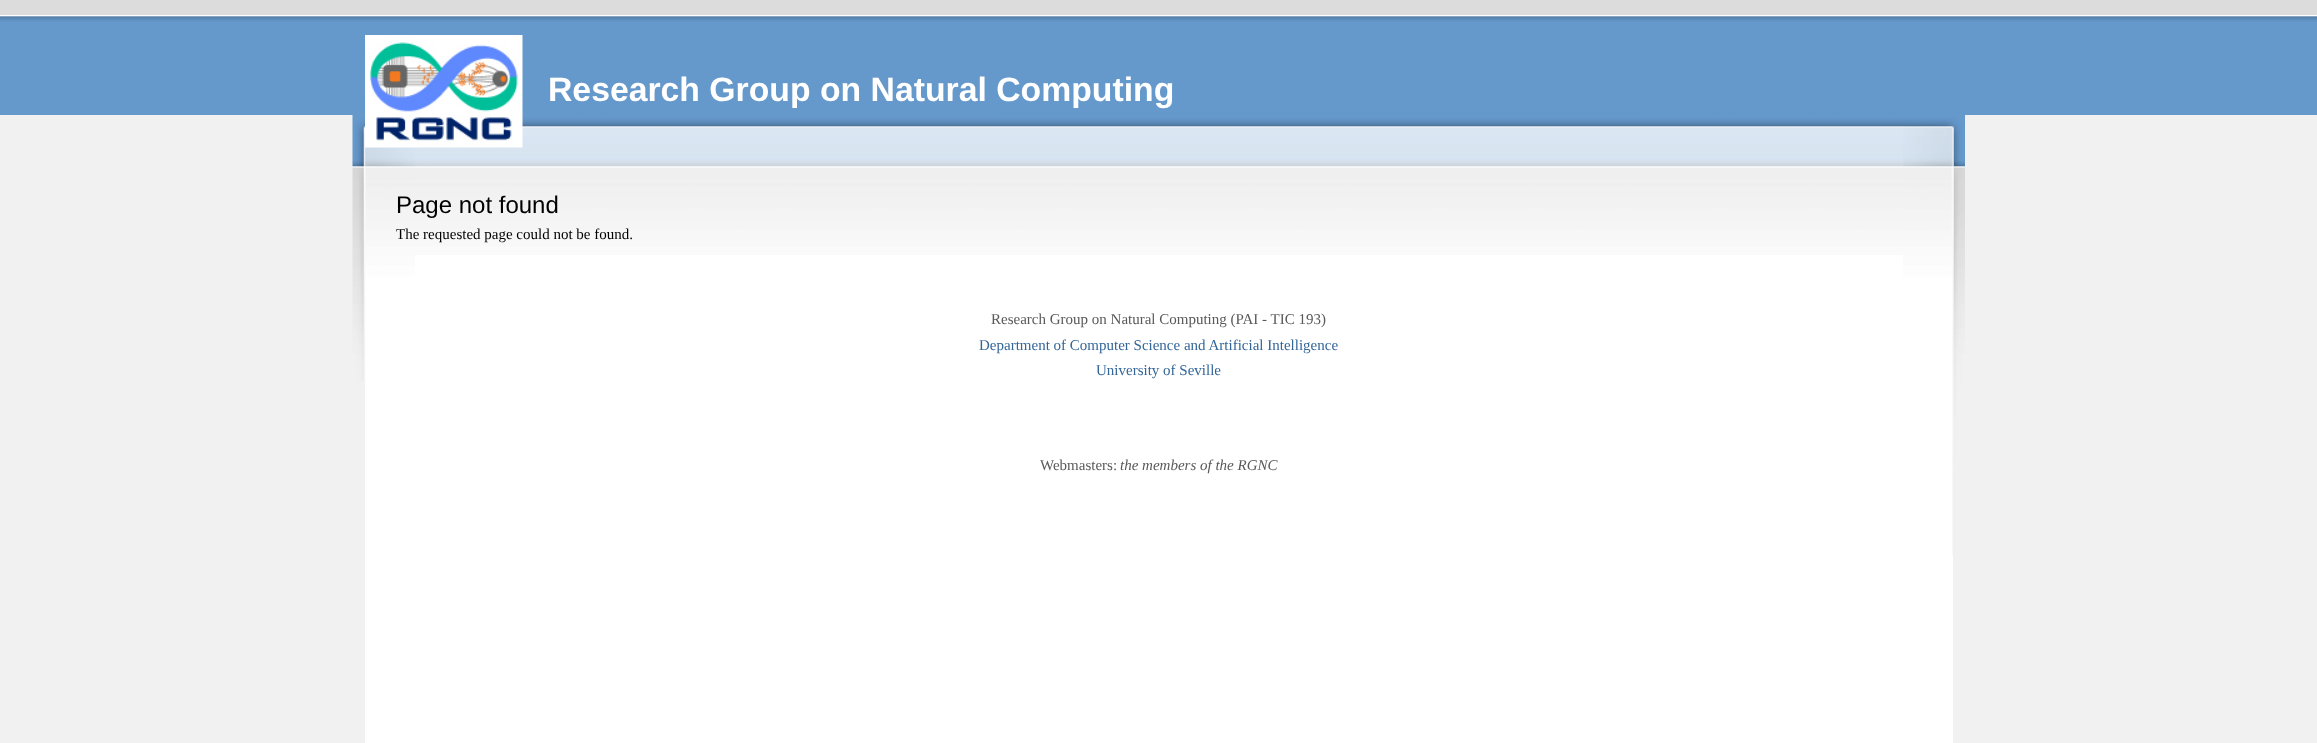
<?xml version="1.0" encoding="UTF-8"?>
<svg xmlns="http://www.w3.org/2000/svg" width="2317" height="743">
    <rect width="100%" height="100%" fill="#F1F1F1"/>
    <rect x="0" y="0" width="2317" height="15" fill="#DDDCDC"/>
    <image x="0" y="15" width="2317" height="100" href="img_01.png"/>
    <image x="415" y="115" width="1488" height="140" href="img_03.png"/>
    <rect x="365" y="255" width="1588" height="488" fill="#FFFFFF"/>
    <image x="352" y="115" width="63" height="266" href="img_05.png"/>
    <image x="365" y="35" width="158" height="113" href="img_02.png"/>
    <text x="548" y="101" font-family="Liberation Sans" font-size="33.75" font-weight="700" fill="#FFFFFF">Research Group on Natural Computing</text>
    <image x="1903" y="115" width="62" height="440" href="img_04.png"/>
    <text x="396" y="213" font-family="Liberation Sans" font-size="24" fill="#000000">Page not found</text>
    <text x="396" y="239" font-family="Liberation Serif" font-size="15" fill="#000000">The requested page could not be found.</text>
    <text x="991" y="324" font-family="Liberation Serif" font-size="15" fill="#595959">Research Group on Natural Computing (PAI - TIC 193)</text>
    <text x="979" y="350" font-family="Liberation Serif" font-size="15" fill="#336699">Department of Computer Science and Artificial Intelligence</text>
    <text x="1096" y="375" font-family="Liberation Serif" font-size="15" fill="#336699">University of Seville</text>
    <text x="1040" y="470" font-family="Liberation Serif" font-size="15" fill="#595959">Webmasters:</text>
    <text x="1120" y="470" font-family="Liberation Serif" font-size="15" font-style="italic" fill="#595959">the members of the RGNC</text>
</svg>
